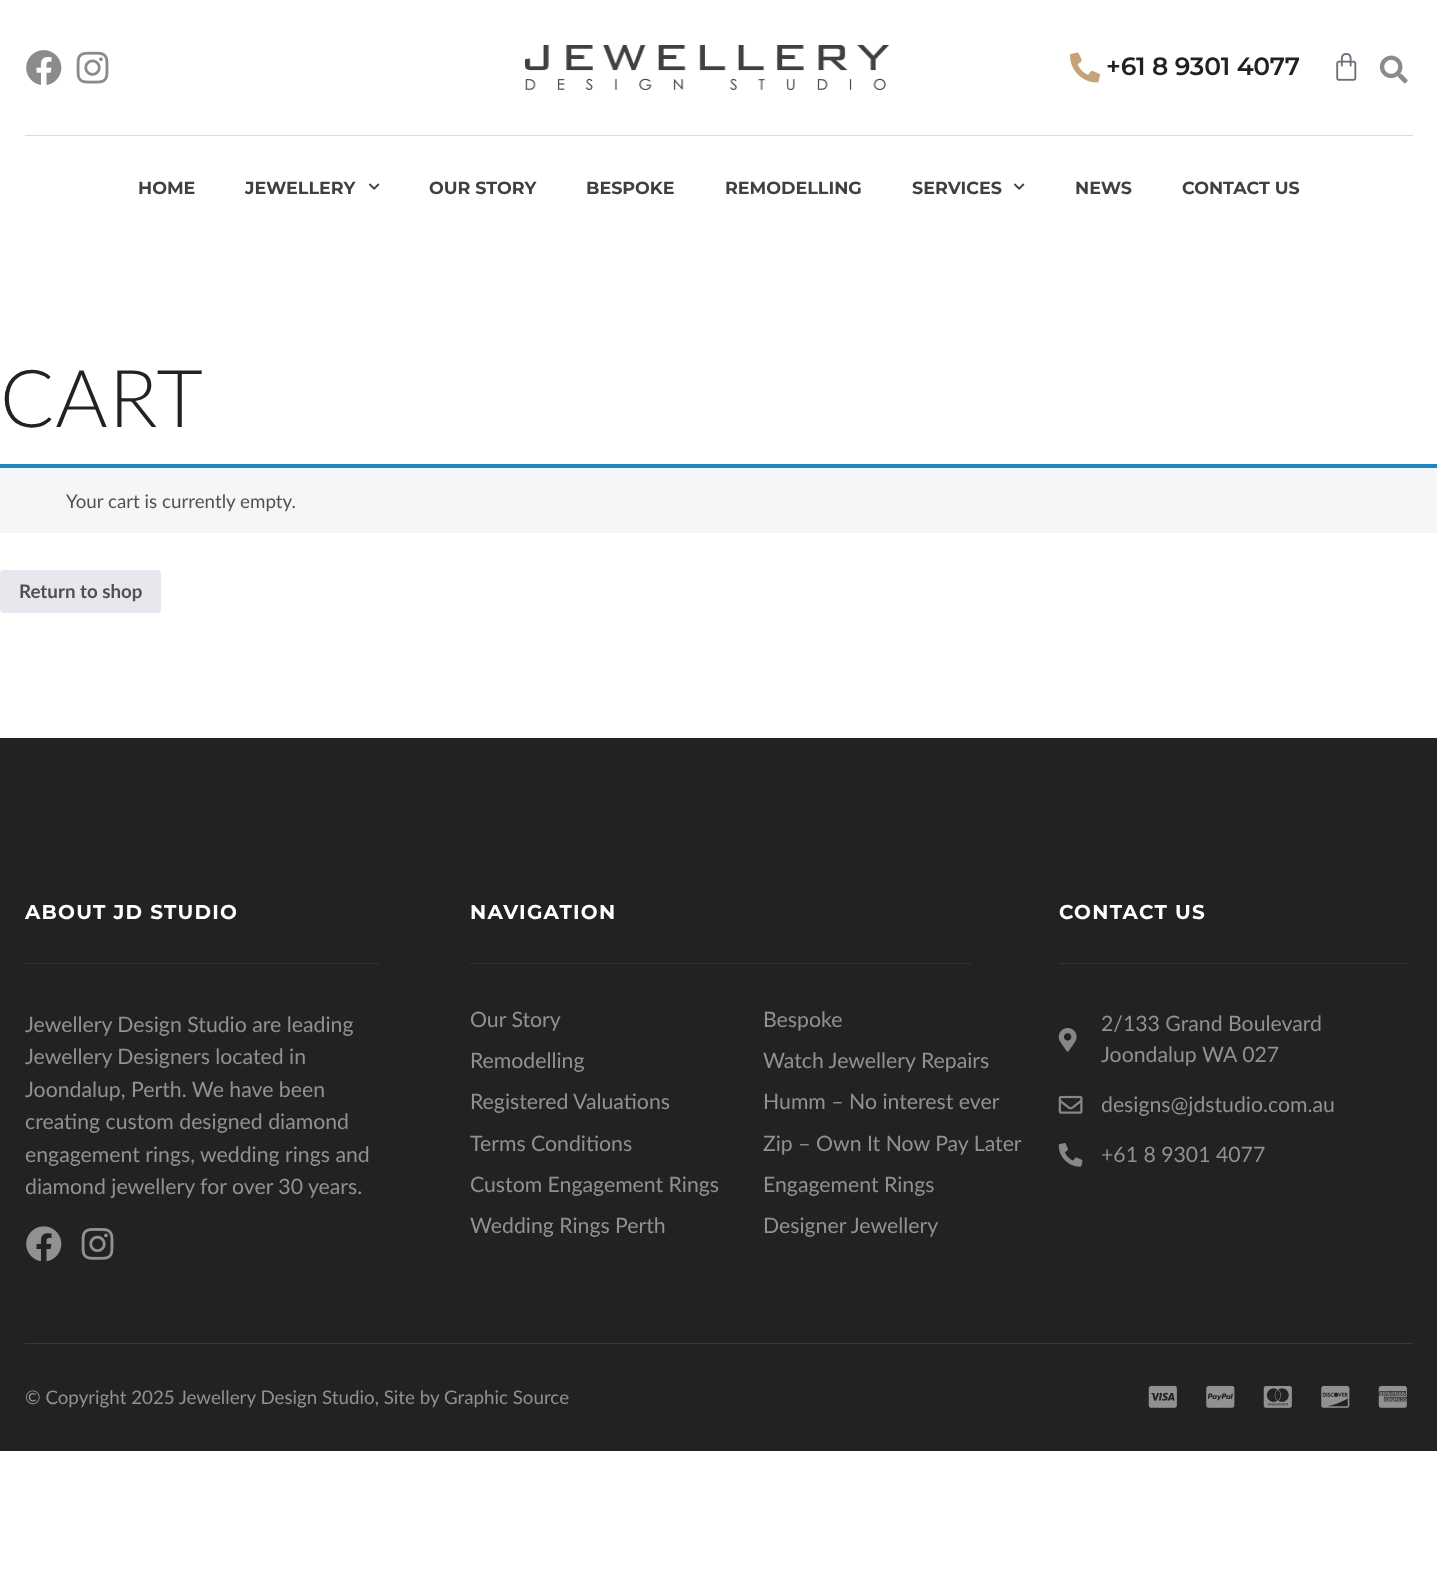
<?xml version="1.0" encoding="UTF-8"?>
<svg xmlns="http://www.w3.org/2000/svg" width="1437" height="1592">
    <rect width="100%" height="100%" fill="#FFFFFF"/>
    <image x="26" y="50" width="36" height="35" href="img_01.png"/>
    <image x="76" y="51" width="33" height="33" href="img_02.png"/>
    <image x="525" y="45" width="364" height="45" href="img_03.png"/>
    <image x="1070" y="52" width="30" height="31" href="img_04.png"/>
    <text x="1106" y="75" font-family="Montserrat" font-size="25" font-weight="600" letter-spacing="-0.25" fill="#222222">+61 8 9301 4077</text>
    <image x="1336" y="53" width="21" height="28" href="img_05.png"/>
    <image x="1379" y="55" width="29" height="29" href="img_06.png"/>
    <rect x="25" y="135" width="1388" height="1" fill="#DBDBDB"/>
    <text x="138" y="194" font-family="Montserrat" font-size="17.5" font-weight="700" fill="#414041">HOME</text>
    <text x="245" y="194" font-family="Montserrat" font-size="17.5" font-weight="700" fill="#414041">JEWELLERY</text>
    <image x="368" y="183" width="12" height="7" href="img_07.png"/>
    <text x="429" y="194" font-family="Montserrat" font-size="17.5" font-weight="700" fill="#414041">OUR STORY</text>
    <text x="586" y="194" font-family="Montserrat" font-size="17.5" font-weight="700" fill="#414041">BESPOKE</text>
    <text x="725" y="194" font-family="Montserrat" font-size="17.5" font-weight="700" fill="#414041">REMODELLING</text>
    <text x="912" y="194" font-family="Montserrat" font-size="17.5" font-weight="700" fill="#414041">SERVICES</text>
    <image x="1013" y="183" width="12" height="7" href="img_07.png"/>
    <text x="1075" y="194" font-family="Montserrat" font-size="17.5" font-weight="700" fill="#414041">NEWS</text>
    <text x="1182" y="194" font-family="Montserrat" font-size="17.5" font-weight="700" fill="#414041">CONTACT US</text>
    <text x="0" y="427" font-family="Lato" font-size="80" font-weight="300" letter-spacing="1.25" fill="#222222">CART</text>
    <rect x="0" y="468" width="1437" height="65" fill="#F6F5F8"/>
    <rect x="0" y="464" width="1437" height="4" fill="#1E85BE"/>
    <text x="66" y="508" font-family="Lato" font-size="18.75" fill="#515151">Your cart is currently empty.</text>
    <rect x="0" y="570" width="161" height="43" rx="4" fill="#E9E6ED"/>
    <text x="19" y="598" font-family="Lato" font-size="18.75" font-weight="700" fill="#515151">Return to shop</text>
    <rect x="0" y="738" width="1437" height="713" fill="#222222"/>
    <rect x="25" y="1343" width="1388" height="1" fill="#383838"/>
    <text x="25" y="919" font-family="Montserrat" font-size="20" font-weight="700" letter-spacing="1.25" fill="#FFFFFF">ABOUT JD STUDIO</text>
    <rect x="25" y="963" width="355" height="1" fill="#323232"/>
    <text font-family="Lato" font-size="21.25" fill="#919191">
        <tspan x="25" y="1032">Jewellery Design Studio are leading</tspan>
        <tspan x="25" y="1064">Jewellery Designers located in</tspan>
        <tspan x="25" y="1097">Joondalup, Perth. We have been</tspan>
        <tspan x="25" y="1129">creating custom designed diamond</tspan>
        <tspan x="25" y="1162">engagement rings, wedding rings and</tspan>
        <tspan x="25" y="1194">diamond jewellery for over 30 years.</tspan>
    </text>
    <image x="26" y="1226" width="36" height="36" href="img_08.png"/>
    <image x="81" y="1228" width="33" height="32" href="img_09.png"/>
    <text x="470" y="919" font-family="Montserrat" font-size="20" font-weight="700" letter-spacing="1.25" fill="#FFFFFF">NAVIGATION</text>
    <rect x="470" y="963" width="501" height="1" fill="#323232"/>
    <text font-family="Lato" font-size="21.25" fill="#919191">
        <tspan x="470" y="1027">Our Story</tspan>
        <tspan x="470" y="1068">Remodelling</tspan>
        <tspan x="470" y="1109">Registered Valuations</tspan>
        <tspan x="470" y="1151">Terms Conditions</tspan>
        <tspan x="470" y="1192">Custom Engagement Rings</tspan>
        <tspan x="470" y="1233">Wedding Rings Perth</tspan>
    </text>
    <text font-family="Lato" font-size="21.25" fill="#919191">
        <tspan x="763" y="1027">Bespoke</tspan>
        <tspan x="763" y="1068">Watch Jewellery Repairs</tspan>
        <tspan x="763" y="1109">Humm – No interest ever</tspan>
        <tspan x="763" y="1151">Zip – Own It Now Pay Later</tspan>
        <tspan x="763" y="1192">Engagement Rings</tspan>
        <tspan x="763" y="1233">Designer Jewellery</tspan>
    </text>
    <text x="1059" y="919" font-family="Montserrat" font-size="20" font-weight="700" letter-spacing="1.25" fill="#FFFFFF">CONTACT US</text>
    <rect x="1059" y="963" width="349" height="1" fill="#323232"/>
    <image x="1058" y="1028" width="19" height="24" href="img_10.png"/>
    <text font-family="Lato" font-size="21.25" fill="#919191">
        <tspan x="1101" y="1031">2/133 Grand Boulevard</tspan>
        <tspan x="1101" y="1062">Joondalup WA 027</tspan>
    </text>
    <image x="1058" y="1095" width="25" height="19" href="img_11.png"/>
    <text x="1101" y="1112" font-family="Lato" font-size="21.25" fill="#919191">designs@jdstudio.com.au</text>
    <image x="1058" y="1143" width="25" height="24" href="img_12.png"/>
    <text x="1101" y="1162" font-family="Lato" font-size="21.25" fill="#919191">+61 8 9301 4077</text>
    <text x="25" y="1404" font-family="Lato" font-size="18.75" fill="#919191">© Copyright 2025 Jewellery Design Studio, Site by Graphic Source</text>
    <image x="1148" y="1385" width="29" height="23" href="img_13.png"/>
    <image x="1206" y="1385" width="29" height="23" href="img_14.png"/>
    <image x="1263" y="1386" width="29" height="22" href="img_15.png"/>
    <image x="1321" y="1385" width="29" height="23" href="img_16.png"/>
    <image x="1378" y="1385" width="29" height="23" href="img_17.png"/>
</svg>
